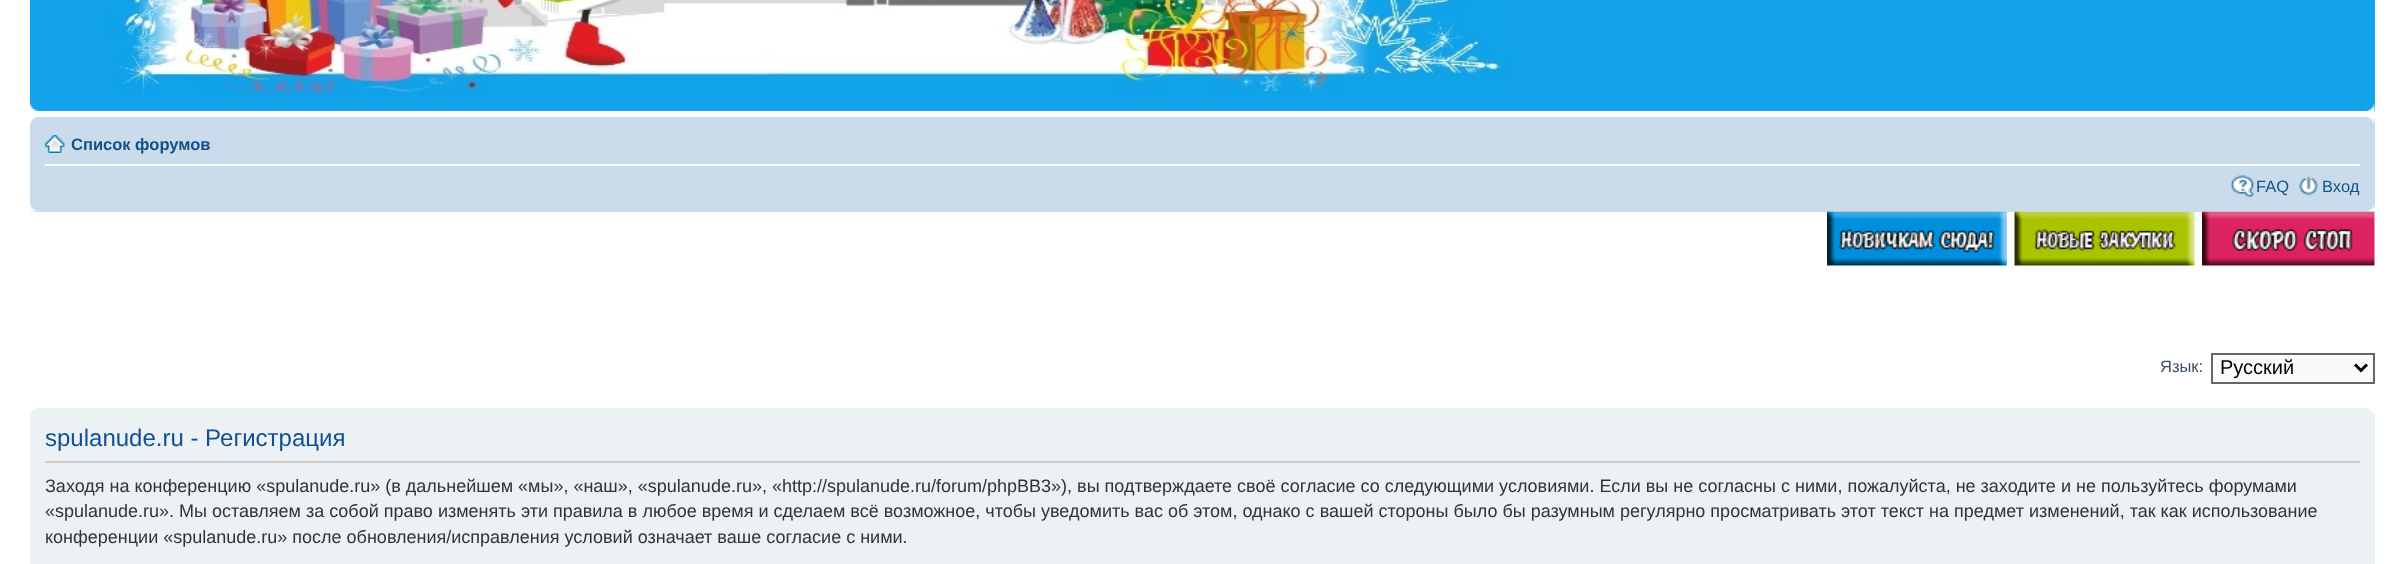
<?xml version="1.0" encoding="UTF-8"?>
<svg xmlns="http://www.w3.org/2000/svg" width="2404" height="564">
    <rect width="100%" height="100%" fill="#FFFFFF"/>
    <rect x="30" y="0" width="2345" height="111" fill="#12A3EB"/>
    <image x="103" y="0" width="1410" height="98" href="img_01.png"/>
    <image x="30" y="103" width="8" height="8" href="img_02.png"/>
    <image x="2366" y="103" width="9" height="8" href="img_03.png"/>
    <rect x="30" y="117" width="2345" height="95" fill="#CADCEB"/>
    <image x="30" y="117" width="8" height="8" href="img_04.png"/>
    <image x="2367" y="117" width="8" height="8" href="img_05.png"/>
    <rect x="45" y="164" width="2315" height="2" fill="#FFFFFF"/>
    <image x="45" y="135" width="20" height="18" href="img_06.png"/>
    <text x="71" y="150" font-family="Liberation Sans" font-size="16.5" font-weight="700" fill="#105289">Список форумов</text>
    <image x="2230" y="175" width="25" height="22" href="img_07.png"/>
    <text x="2256" y="192" font-family="Liberation Sans" font-size="16.5" fill="#105289">FAQ</text>
    <image x="2299" y="176" width="19" height="20" href="img_08.png"/>
    <text x="2322" y="192" font-family="Liberation Sans" font-size="16.5" fill="#105289">Вход</text>
    <image x="30" y="204" width="8" height="8" href="img_09.png"/>
    <image x="2367" y="204" width="8" height="8" href="img_10.png"/>
    <image x="1827" y="211" width="180" height="55" href="img_11.png"/>
    <image x="2014" y="211" width="181" height="55" href="img_12.png"/>
    <image x="2202" y="211" width="173" height="55" href="img_13.png"/>
    <text x="2160" y="372" font-family="Liberation Sans" font-size="16.5" fill="#425067">Язык:</text>
    <rect x="2212" y="354" width="162" height="29" fill="#FAFAFA" stroke="#666666" stroke-width="2"/>
    <path d="M 2355 364.5 L 2361 370.5 L 2367 364.5" fill="none" stroke="#000000" stroke-width="3"/>
    <text x="2220" y="374" font-family="Liberation Sans" font-size="20" fill="#000000">Русский</text>
    <rect x="30" y="408" width="2345" height="156" fill="#ECF1F3"/>
    <image x="30" y="408" width="7" height="7" href="img_14.png"/>
    <image x="2368" y="408" width="7" height="7" href="img_15.png"/>
    <rect x="45" y="461" width="2315" height="2" fill="#CCCCCC"/>
    <text x="45" y="446" font-family="Liberation Sans" font-size="24" fill="#115098">spulanude.ru - Регистрация</text>
    <text font-family="Liberation Sans" font-size="18" fill="#333333">
        <tspan x="45" y="492">Заходя на конференцию «spulanude.ru» (в дальнейшем «мы», «наш», «spulanude.ru», «http://spulanude.ru/forum/phpBB3»), вы подтверждаете своё согласие со следующими условиями. Если вы не согласны с ними, пожалуйста, не заходите и не пользуйтесь форумами</tspan>
        <tspan x="45" y="517">«spulanude.ru». Мы оставляем за собой право изменять эти правила в любое время и сделаем всё возможное, чтобы уведомить вас об этом, однако с вашей стороны было бы разумным регулярно просматривать этот текст на предмет изменений, так как использование</tspan>
        <tspan x="45" y="543">конференции «spulanude.ru» после обновления/исправления условий означает ваше согласие с ними.</tspan>
    </text>
</svg>
